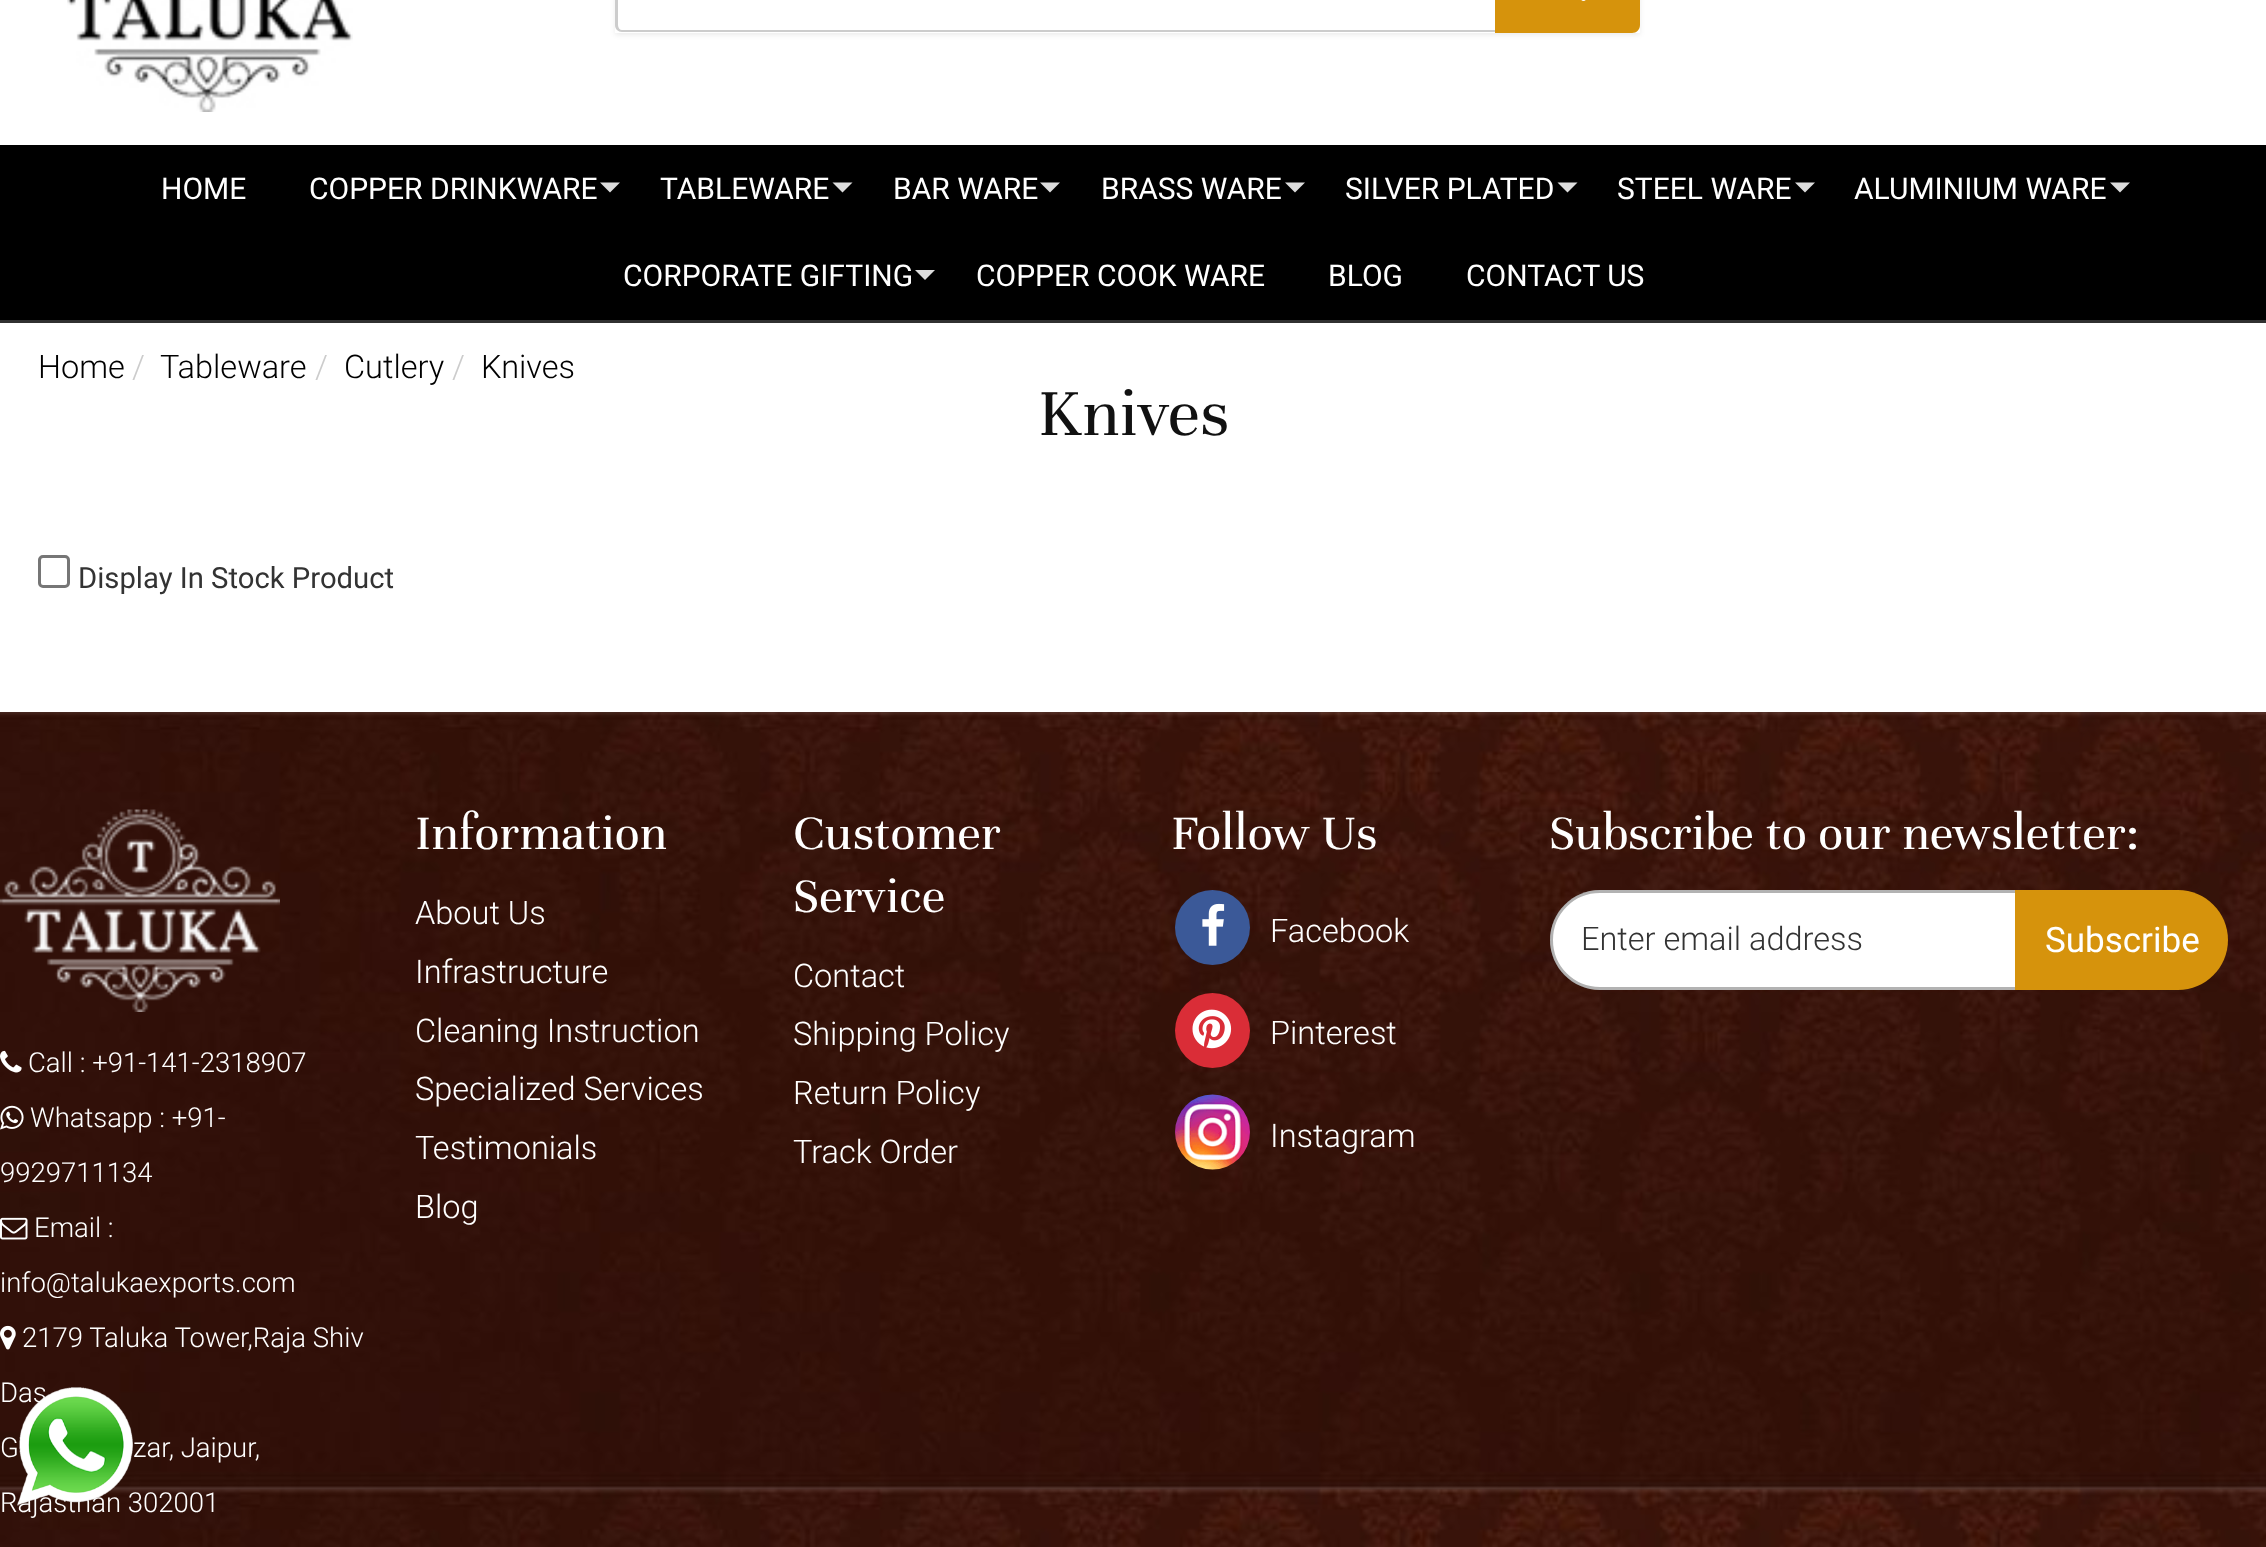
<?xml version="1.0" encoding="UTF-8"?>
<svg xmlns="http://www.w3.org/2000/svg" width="2266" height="1547">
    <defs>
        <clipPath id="clip1"><path d="M 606 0 H 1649 V 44 H 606 Z M 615 -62 H 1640 V 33 H 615 Z" clip-rule="evenodd"/></clipPath>
        <filter id="blur1" x="-50%" y="-200%" width="200%" height="500%"><feGaussianBlur stdDeviation="2.5"/></filter>
    </defs>
    <rect width="100%" height="100%" fill="#FFFFFF"/>
    <image x="67" y="0" width="286" height="112" href="img_01.png"/>
    <g clip-path="url(#clip1)">
        <rect x="615" y="-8" width="1025" height="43" fill="#000000" fill-opacity="0.08" filter="url(#blur1)"/>
    </g>
    <path d="M 622 -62 H 1495 V 32 H 622 C 618 32 615 29 615 25 V -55 C 615 -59 618 -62 622 -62 Z M 622 -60 H 1495 V 30 H 622 C 620 30 618 28 618 25 V -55 C 618 -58 620 -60 622 -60 Z" fill="#CCCCCC" fill-rule="evenodd"/>
    <path d="M 1495 -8 H 1632 C 1636.5 -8 1640 -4.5 1640 0 V 25 C 1640 29.5 1636.5 33 1632 33 H 1495 Z" fill="#D6930C"/>
    <image x="1581" y="0" width="5" height="1" href="img_02.png"/>
    <rect x="0" y="145" width="2266" height="175" fill="#000000"/>
    <rect x="0" y="320" width="2266" height="3" fill="#313131"/>
    <text x="161" y="199" font-family="Roboto" font-size="30" fill="#FFFFFF">HOME</text>
    <text x="309" y="199" font-family="Roboto" font-size="30" fill="#FFFFFF">COPPER DRINKWARE</text>
    <path d="M 600 182.5 H 620 L 610 192.5 Z" fill="#DDDDDD"/>
    <text x="660" y="199" font-family="Roboto" font-size="30" fill="#FFFFFF">TABLEWARE</text>
    <path d="M 832.5 182.5 H 852.5 L 842.5 192.5 Z" fill="#DDDDDD"/>
    <text x="893" y="199" font-family="Roboto" font-size="30" fill="#FFFFFF">BAR WARE</text>
    <path d="M 1040 182.5 H 1060 L 1050 192.5 Z" fill="#DDDDDD"/>
    <text x="1101" y="199" font-family="Roboto" font-size="30" fill="#FFFFFF">BRASS WARE</text>
    <path d="M 1285 182.5 H 1305 L 1295 192.5 Z" fill="#DDDDDD"/>
    <text x="1345" y="199" font-family="Roboto" font-size="30" fill="#FFFFFF">SILVER PLATED</text>
    <path d="M 1557.5 182.5 H 1577.5 L 1567.5 192.5 Z" fill="#DDDDDD"/>
    <text x="1617" y="199" font-family="Roboto" font-size="30" fill="#FFFFFF">STEEL WARE</text>
    <path d="M 1795 182.5 H 1815 L 1805 192.5 Z" fill="#DDDDDD"/>
    <text x="1854" y="199" font-family="Roboto" font-size="30" fill="#FFFFFF">ALUMINIUM WARE</text>
    <path d="M 2110 182.5 H 2130 L 2120 192.5 Z" fill="#DDDDDD"/>
    <text x="623" y="286" font-family="Roboto" font-size="30" fill="#FFFFFF">CORPORATE GIFTING</text>
    <path d="M 915 270 H 935 L 925 280 Z" fill="#DDDDDD"/>
    <text x="976" y="286" font-family="Roboto" font-size="30" fill="#FFFFFF">COPPER COOK WARE</text>
    <text x="1328" y="286" font-family="Roboto" font-size="30" fill="#FFFFFF">BLOG</text>
    <text x="1466" y="286" font-family="Roboto" font-size="30" fill="#FFFFFF">CONTACT US</text>
    <text x="38" y="378" font-family="Roboto" font-size="32.5" font-weight="300" fill="#000000">Home</text>
    <text x="132" y="378" font-family="Roboto" font-size="32.5" font-weight="300" fill="#CCCCCC">/</text>
    <text x="160" y="378" font-family="Roboto" font-size="32.5" font-weight="300" fill="#000000">Tableware</text>
    <text x="315" y="378" font-family="Roboto" font-size="32.5" font-weight="300" fill="#CCCCCC">/</text>
    <text x="344" y="378" font-family="Roboto" font-size="32.5" font-weight="300" fill="#000000">Cutlery</text>
    <text x="452" y="378" font-family="Roboto" font-size="32.5" font-weight="300" fill="#CCCCCC">/</text>
    <text x="481" y="378" font-family="Roboto" font-size="32.5" font-weight="300" fill="#000000">Knives</text>
    <text x="1038" y="435" font-family="Unna" font-size="71.5" fill="#111111">Knives</text>
    <rect x="39.5" y="556.5" width="29" height="30" rx="3.5" fill="none" stroke="#767676" stroke-width="3"/>
    <text x="78" y="588" font-family="Roboto" font-size="29.25" fill="#333333">Display In Stock Product</text>
    <image x="0" y="712" width="2266" height="835" href="img_03.png"/>
    <text x="415" y="849" font-family="Unna" font-size="52.5" fill="#FFFFFF">Information</text>
    <text font-family="Roboto" font-size="32.5" font-weight="300" fill="#FFFFFF">
        <tspan x="415" y="924">About Us</tspan>
        <tspan x="415" y="983">Infrastructure</tspan>
        <tspan x="415" y="1042">Cleaning Instruction</tspan>
        <tspan x="415" y="1100">Specialized Services</tspan>
        <tspan x="415" y="1159">Testimonials</tspan>
        <tspan x="415" y="1218">Blog</tspan>
    </text>
    <text font-family="Unna" font-size="52.5" fill="#FFFFFF">
        <tspan x="793" y="849">Customer</tspan>
        <tspan x="793" y="912">Service</tspan>
    </text>
    <text font-family="Roboto" font-size="32.5" font-weight="300" fill="#FFFFFF">
        <tspan x="793" y="987">Contact</tspan>
        <tspan x="793" y="1045">Shipping Policy</tspan>
        <tspan x="793" y="1104">Return Policy</tspan>
        <tspan x="793" y="1163">Track Order</tspan>
    </text>
    <text x="1171" y="849" font-family="Unna" font-size="52.5" fill="#FFFFFF">Follow Us</text>
    <circle cx="1212.5" cy="927.5" r="37.5" fill="#3B5998"/>
    <image x="1202" y="903" width="23" height="43" href="img_04.png"/>
    <text x="1270" y="942" font-family="Roboto" font-size="32.5" font-weight="300" fill="#FFFFFF">Facebook</text>
    <circle cx="1212.5" cy="1030.5" r="37.5" fill="#DA2D37"/>
    <image x="1192" y="1009" width="40" height="40" href="img_05.png"/>
    <text x="1270" y="1044" font-family="Roboto" font-size="32.5" font-weight="300" fill="#FFFFFF">Pinterest</text>
    <image x="1175" y="1094" width="75" height="76" href="img_06.png"/>
    <text x="1270" y="1147" font-family="Roboto" font-size="32.5" font-weight="300" fill="#FFFFFF">Instagram</text>
    <image x="0" y="809" width="280" height="203" href="img_07.png"/>
    <image x="0" y="1050" width="22" height="23" href="img_08.png"/>
    <text x="28" y="1072" font-family="Roboto" font-size="27.5" font-weight="300" fill="#FFFFFF">Call : +91-141-2318907</text>
    <image x="0" y="1105" width="24" height="25" href="img_09.png"/>
    <text x="30" y="1127" font-family="Roboto" font-size="27.5" font-weight="300" fill="#FFFFFF">Whatsapp : +91-</text>
    <text x="0" y="1182" font-family="Roboto" font-size="27.5" font-weight="300" fill="#FFFFFF">9929711134</text>
    <image x="0" y="1217" width="28" height="23" href="img_10.png"/>
    <text x="34" y="1237" font-family="Roboto" font-size="27.5" font-weight="300" fill="#FFFFFF">Email :</text>
    <text x="0" y="1292" font-family="Roboto" font-size="27.5" font-weight="300" fill="#FFFFFF">info@talukaexports.com</text>
    <image x="0" y="1325" width="16" height="25" href="img_11.png"/>
    <text x="22" y="1347" font-family="Roboto" font-size="27.5" font-weight="300" fill="#FFFFFF">2179 Taluka Tower,Raja Shiv</text>
    <text x="0" y="1402" font-family="Roboto" font-size="27.5" font-weight="300" fill="#FFFFFF">Das</text>
    <text x="0" y="1457" font-family="Roboto" font-size="27.5" font-weight="300" fill="#FFFFFF">G</text>
    <text x="133" y="1457" font-family="Roboto" font-size="27.5" font-weight="300" fill="#FFFFFF">zar, Jaipur,</text>
    <text x="0" y="1512" font-family="Roboto" font-size="27.5" font-weight="300" fill="#FFFFFF">Rajasthan 302001</text>
    <text x="1549" y="849" font-family="Unna" font-size="52.5" fill="#FFFFFF">Subscribe to our newsletter:</text>
    <path d="M 1600 890 H 2018 V 990 H 1600 C 1572.5 990 1550 967.5 1550 940 C 1550 912.5 1572.5 890 1600 890 Z" fill="#FFFFFF"/>
    <path d="M 1600 891.5 H 2016.5 V 988.5 H 1600 C 1573 988.5 1551.5 967 1551.5 940 C 1551.5 913 1573 891.5 1600 891.5 Z" fill="none" stroke="#000000" stroke-opacity="0.3" stroke-width="3"/>
    <text x="1581" y="950" font-family="Roboto" font-size="32.5" font-weight="300" fill="#333333">Enter email address</text>
    <path d="M 2015 890 H 2178 C 2205.5 890 2228 912.5 2228 940 C 2228 967.5 2205.5 990 2178 990 H 2015 Z" fill="#D6930C"/>
    <text x="2045" y="952" font-family="Roboto" font-size="35" fill="#FFFFFF">Subscribe</text>
    <image x="17" y="1387" width="116" height="119" href="img_12.png"/>
</svg>
